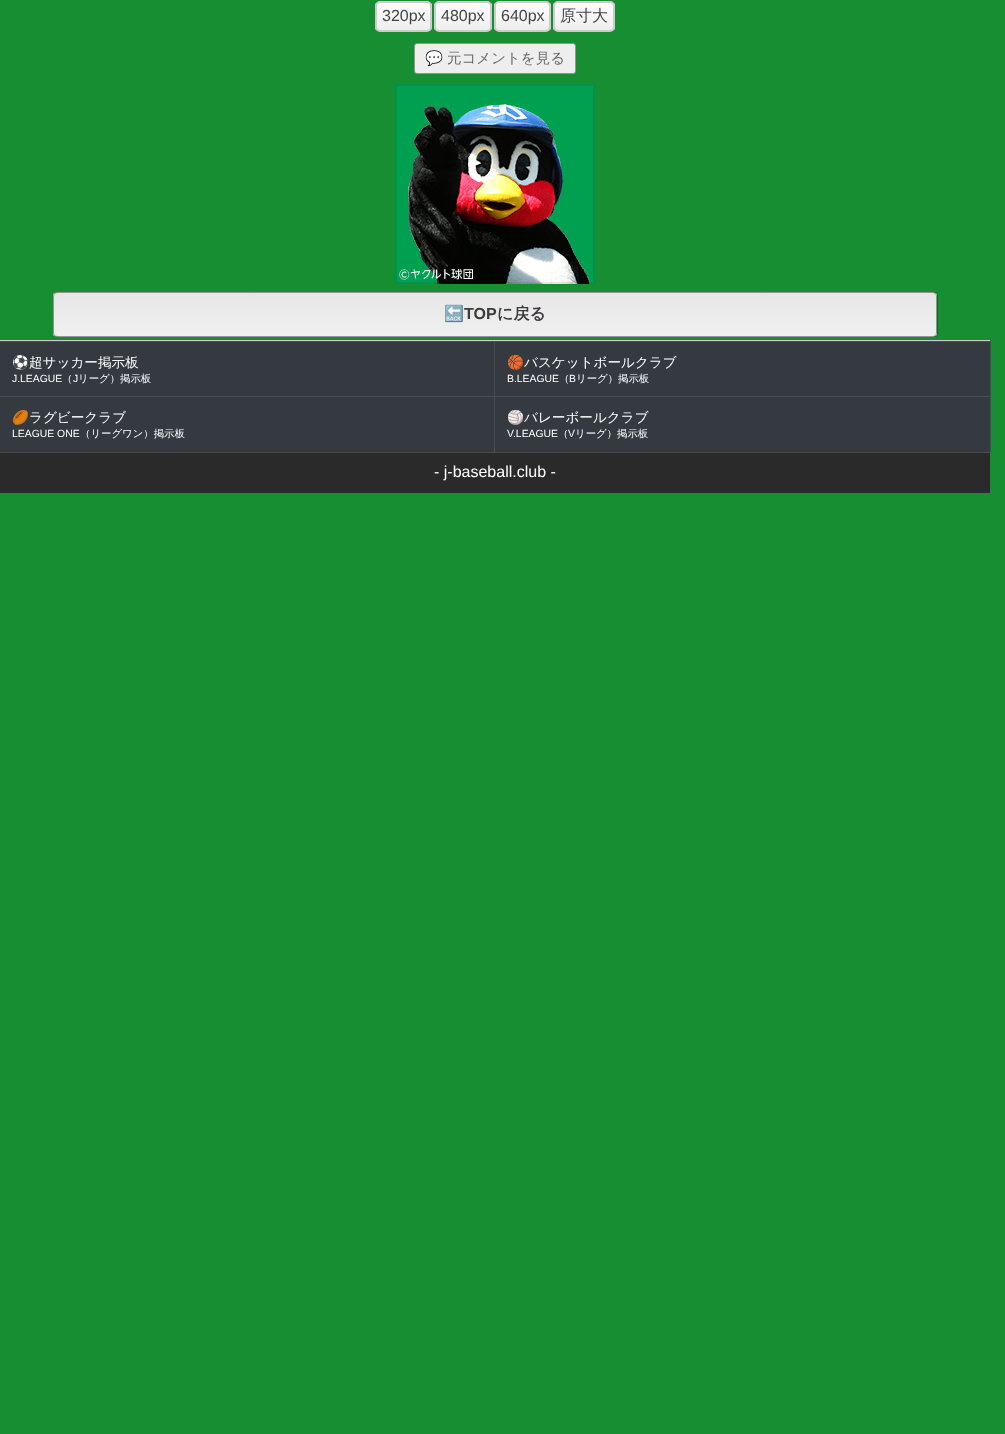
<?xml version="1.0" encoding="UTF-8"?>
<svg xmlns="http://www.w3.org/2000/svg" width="1005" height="1434">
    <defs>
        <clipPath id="clip1"><rect x="375" y="1" width="57" height="31" rx="5"/></clipPath>
        <linearGradient id="g1" gradientUnits="userSpaceOnUse" x1="377" y1="3" x2="377" y2="30"><stop offset="0" stop-color="#FDFDFD"/><stop offset="1" stop-color="#EEEEEE"/></linearGradient>
        <clipPath id="clip2"><rect x="434" y="1" width="58" height="31" rx="5"/></clipPath>
        <linearGradient id="g2" gradientUnits="userSpaceOnUse" x1="436" y1="3" x2="436" y2="30"><stop offset="0" stop-color="#FDFDFD"/><stop offset="1" stop-color="#EEEEEE"/></linearGradient>
        <clipPath id="clip3"><rect x="494" y="1" width="57" height="31" rx="5"/></clipPath>
        <linearGradient id="g3" gradientUnits="userSpaceOnUse" x1="496" y1="3" x2="496" y2="30"><stop offset="0" stop-color="#FDFDFD"/><stop offset="1" stop-color="#EEEEEE"/></linearGradient>
        <clipPath id="clip4"><rect x="553" y="1" width="62" height="31" rx="5"/></clipPath>
        <linearGradient id="g4" gradientUnits="userSpaceOnUse" x1="555" y1="3" x2="555" y2="30"><stop offset="0" stop-color="#FDFDFD"/><stop offset="1" stop-color="#EEEEEE"/></linearGradient>
        <filter id="blur1" x="-50%" y="-200%" width="200%" height="500%"><feGaussianBlur stdDeviation="0.5"/></filter>
        <clipPath id="clip5"><rect x="53" y="292" width="884" height="45" rx="4"/></clipPath>
        <linearGradient id="g5" gradientUnits="userSpaceOnUse" x1="54" y1="293" x2="54" y2="336"><stop offset="0" stop-color="#E6E6E6"/><stop offset="1" stop-color="#F0F0F0"/></linearGradient>
    </defs>
    <rect width="100%" height="100%" fill="#178E32"/>
    <g clip-path="url(#clip1)">
        <rect x="375" y="3" width="57" height="27" fill="url(#g1)"/>
    </g>
    <rect x="376" y="2" width="55" height="29" rx="4" fill="none" stroke="#CCCCCC" stroke-width="2"/>
    <text x="382" y="21" font-family="Liberation Sans" font-size="16" fill="#444444">320px</text>
    <g clip-path="url(#clip2)">
        <rect x="434" y="3" width="58" height="27" fill="url(#g2)"/>
    </g>
    <rect x="435" y="2" width="56" height="29" rx="4" fill="none" stroke="#CCCCCC" stroke-width="2"/>
    <text x="441" y="21" font-family="Liberation Sans" font-size="16" fill="#444444">480px</text>
    <g clip-path="url(#clip3)">
        <rect x="494" y="3" width="57" height="27" fill="url(#g3)"/>
    </g>
    <rect x="495" y="2" width="55" height="29" rx="4" fill="none" stroke="#CCCCCC" stroke-width="2"/>
    <text x="501" y="21" font-family="Liberation Sans" font-size="16" fill="#444444">640px</text>
    <g clip-path="url(#clip4)">
        <rect x="553" y="3" width="62" height="27" fill="url(#g4)"/>
    </g>
    <rect x="554" y="2" width="60" height="29" rx="4" fill="none" stroke="#CCCCCC" stroke-width="2"/>
    <text x="560" y="21" font-family="WenQuanYi Zen Hei" font-size="16" font-weight="500" fill="#444444">原寸大</text>
    <rect x="414.5" y="43.5" width="161" height="30" rx="2.5" fill="#EEEEEE" stroke="#949494"/>
    <text x="425" y="63" font-family="Noto Color Emoji" font-size="14.5" fill="#696969">💬</text>
    <text x="447" y="63" font-family="WenQuanYi Zen Hei" font-size="14.5" font-weight="500" fill="#696969">元コメントを見る</text>
    <image x="395" y="84" width="200" height="200" href="img_01.png"/>
    <rect x="54" y="292" width="884" height="45" rx="4" fill="#000000" fill-opacity="0.3" filter="url(#blur1)"/>
    <g clip-path="url(#clip5)">
        <rect x="53" y="293" width="884" height="43" fill="url(#g5)"/>
    </g>
    <rect x="53.5" y="292.5" width="883" height="44" rx="3.5" fill="none" stroke="#949494"/>
    <text x="444" y="319" font-family="Noto Color Emoji" font-size="16" font-weight="700" fill="#3D3B3D">🔙</text>
    <text x="464" y="319" font-family="Liberation Sans" font-size="16" font-weight="700" fill="#3D3B3D">TOP</text>
    <text x="497" y="319" font-family="WenQuanYi Zen Hei" font-size="16" font-weight="700" fill="#3D3B3D">に戻る</text>
    <rect x="0" y="340" width="990" height="1" fill="#CCCCCC"/>
    <rect x="-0.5" y="341.5" width="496" height="56" fill="none" stroke="#454D55"/>
    <rect x="0" y="342" width="494" height="54" fill="#343A40"/>
    <text x="12" y="367" font-family="Noto Color Emoji" font-size="13.6" fill="#FFFFFF">⚽</text>
    <text x="29" y="367" font-family="WenQuanYi Zen Hei" font-size="13.6" font-weight="500" fill="#FFFFFF">超サッカー掲示板</text>
    <text x="12" y="382" font-family="Liberation Sans" font-size="10.4" fill="#FFFFFF">J.LEAGUE</text>
    <text x="62" y="382" font-family="WenQuanYi Zen Hei" font-size="10.4" font-weight="500" fill="#FFFFFF">（</text>
    <text x="73" y="382" font-family="Liberation Sans" font-size="10.4" fill="#FFFFFF">J</text>
    <text x="78" y="382" font-family="WenQuanYi Zen Hei" font-size="10.4" font-weight="500" fill="#FFFFFF">リーグ）掲示板</text>
    <rect x="494.5" y="341.5" width="496" height="56" fill="none" stroke="#454D55"/>
    <rect x="495" y="342" width="495" height="54" fill="#343A40"/>
    <text x="507" y="367" font-family="Noto Color Emoji" font-size="13.6" fill="#FFFFFF">🏀</text>
    <text x="524" y="367" font-family="WenQuanYi Zen Hei" font-size="13.6" font-weight="500" fill="#FFFFFF">バスケットボールクラブ</text>
    <text x="507" y="382" font-family="Liberation Sans" font-size="10.4" fill="#FFFFFF">B.LEAGUE</text>
    <text x="559" y="382" font-family="WenQuanYi Zen Hei" font-size="10.4" font-weight="500" fill="#FFFFFF">（</text>
    <text x="569" y="382" font-family="Liberation Sans" font-size="10.4" fill="#FFFFFF">B</text>
    <text x="576" y="382" font-family="WenQuanYi Zen Hei" font-size="10.4" font-weight="500" fill="#FFFFFF">リーグ）掲示板</text>
    <rect x="-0.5" y="396.5" width="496" height="56" fill="none" stroke="#454D55"/>
    <rect x="0" y="397" width="494" height="55" fill="#343A40"/>
    <text x="12" y="422" font-family="Noto Color Emoji" font-size="13.6" fill="#FFFFFF">🏉</text>
    <text x="29" y="422" font-family="WenQuanYi Zen Hei" font-size="13.6" font-weight="500" fill="#FFFFFF">ラグビークラブ</text>
    <text x="12" y="437" font-family="Liberation Sans" font-size="10.4" fill="#FFFFFF">LEAGUE ONE</text>
    <text x="80" y="437" font-family="WenQuanYi Zen Hei" font-size="10.4" font-weight="500" fill="#FFFFFF">（リーグワン）掲示板</text>
    <rect x="494.5" y="396.5" width="496" height="56" fill="none" stroke="#454D55"/>
    <rect x="495" y="397" width="495" height="55" fill="#343A40"/>
    <text x="507" y="422" font-family="Noto Color Emoji" font-size="13.6" fill="#FFFFFF">🏐</text>
    <text x="524" y="422" font-family="WenQuanYi Zen Hei" font-size="13.6" font-weight="500" fill="#FFFFFF">バレーボールクラブ</text>
    <text x="507" y="437" font-family="Liberation Sans" font-size="10.4" fill="#FFFFFF">V.LEAGUE</text>
    <text x="558" y="437" font-family="WenQuanYi Zen Hei" font-size="10.4" font-weight="500" fill="#FFFFFF">（</text>
    <text x="568" y="437" font-family="Liberation Sans" font-size="10.4" fill="#FFFFFF">V</text>
    <text x="575" y="437" font-family="WenQuanYi Zen Hei" font-size="10.4" font-weight="500" fill="#FFFFFF">リーグ）掲示板</text>
    <rect x="0" y="453" width="990" height="40" fill="#2A2A2A"/>
    <text x="434" y="477" font-family="Liberation Sans" font-size="16" fill="#FFFFFF">- j-baseball.club -</text>
</svg>
